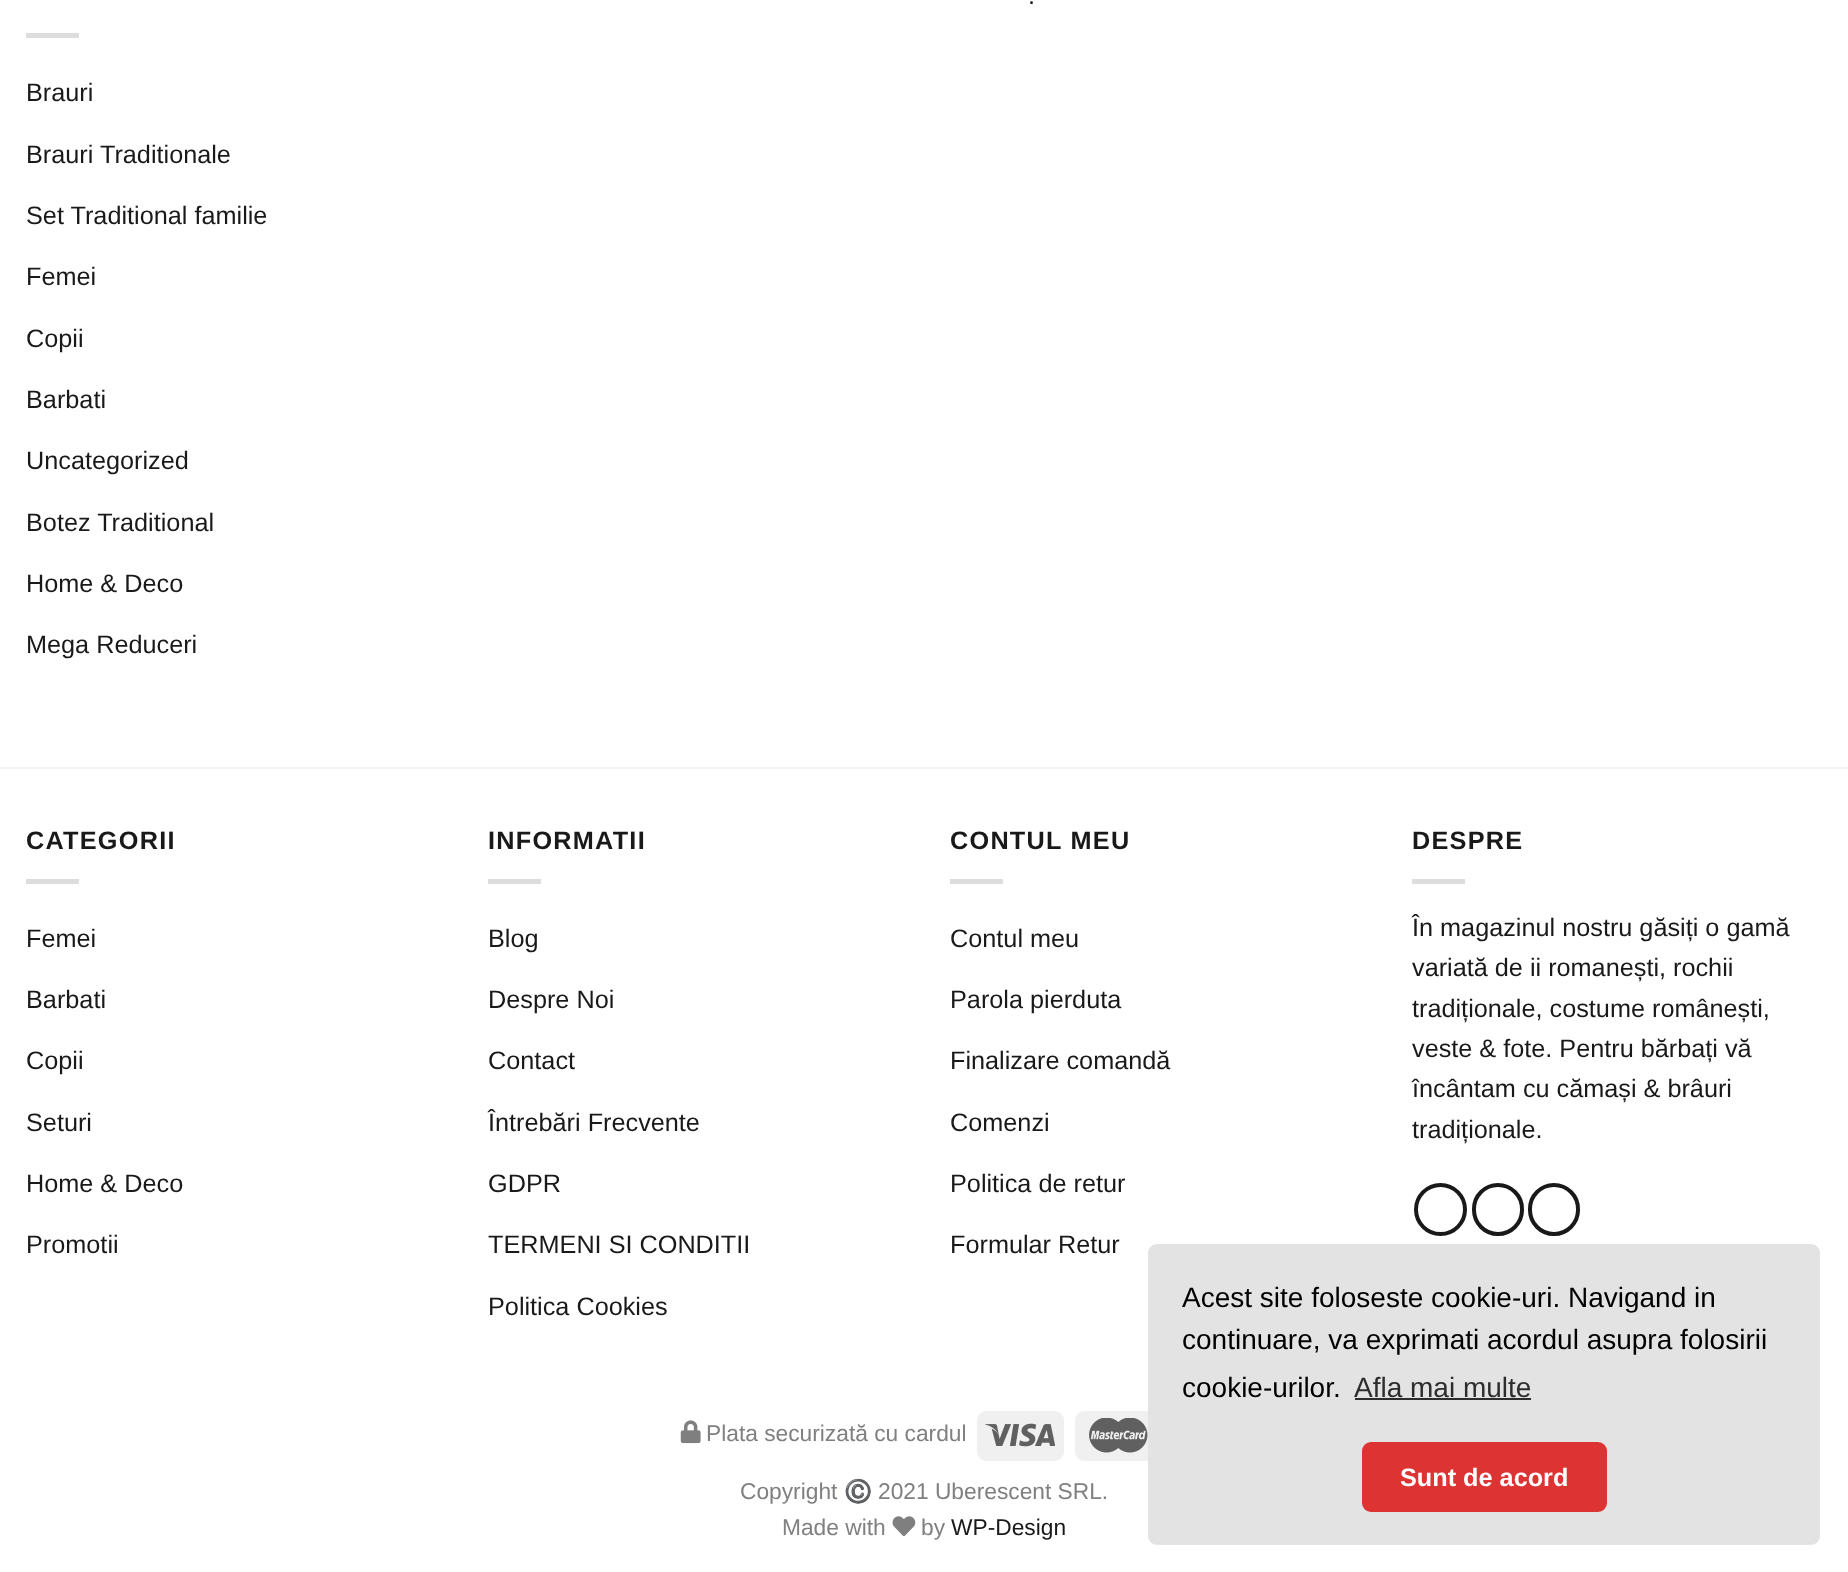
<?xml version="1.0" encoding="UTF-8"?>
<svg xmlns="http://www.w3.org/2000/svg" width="1848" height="1572">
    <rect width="100%" height="100%" fill="#FFFFFF"/>
    <text x="1028" y="4" font-family="Liberation Sans" font-size="25.25" fill="#191919">.</text>
    <rect x="26" y="33" width="53" height="5" fill="#DDDDDD"/>
    <text x="26" y="101" font-family="Liberation Sans" font-size="25.25" fill="#191919">Brauri</text>
    <text x="26" y="163" font-family="Liberation Sans" font-size="25.25" fill="#191919">Brauri Traditionale</text>
    <text x="26" y="224" font-family="Liberation Sans" font-size="25.25" fill="#191919">Set Traditional familie</text>
    <text x="26" y="285" font-family="Liberation Sans" font-size="25.25" fill="#191919">Femei</text>
    <text x="26" y="347" font-family="Liberation Sans" font-size="25.25" fill="#191919">Copii</text>
    <text x="26" y="408" font-family="Liberation Sans" font-size="25.25" fill="#191919">Barbati</text>
    <text x="26" y="469" font-family="Liberation Sans" font-size="25.25" fill="#191919">Uncategorized</text>
    <text x="26" y="531" font-family="Liberation Sans" font-size="25.25" fill="#191919">Botez Traditional</text>
    <text x="26" y="592" font-family="Liberation Sans" font-size="25.25" fill="#191919">Home &amp; Deco</text>
    <text x="26" y="653" font-family="Liberation Sans" font-size="25.25" fill="#191919">Mega Reduceri</text>
    <rect x="0" y="767" width="1848" height="2" fill="#F2F2F2"/>
    <text x="26" y="849" font-family="Liberation Sans" font-size="25.25" font-weight="700" letter-spacing="1.25" fill="#191919">CATEGORII</text>
    <rect x="26" y="879" width="53" height="5" fill="#DDDDDD"/>
    <text x="26" y="947" font-family="Liberation Sans" font-size="25.25" fill="#191919">Femei</text>
    <text x="26" y="1008" font-family="Liberation Sans" font-size="25.25" fill="#191919">Barbati</text>
    <text x="26" y="1069" font-family="Liberation Sans" font-size="25.25" fill="#191919">Copii</text>
    <text x="26" y="1131" font-family="Liberation Sans" font-size="25.25" fill="#191919">Seturi</text>
    <text x="26" y="1192" font-family="Liberation Sans" font-size="25.25" fill="#191919">Home &amp; Deco</text>
    <text x="26" y="1253" font-family="Liberation Sans" font-size="25.25" fill="#191919">Promotii</text>
    <text x="488" y="849" font-family="Liberation Sans" font-size="25.25" font-weight="700" letter-spacing="1.25" fill="#191919">INFORMATII</text>
    <rect x="488" y="879" width="53" height="5" fill="#DDDDDD"/>
    <text x="488" y="947" font-family="Liberation Sans" font-size="25.25" fill="#191919">Blog</text>
    <text x="488" y="1008" font-family="Liberation Sans" font-size="25.25" fill="#191919">Despre Noi</text>
    <text x="488" y="1069" font-family="Liberation Sans" font-size="25.25" fill="#191919">Contact</text>
    <text x="488" y="1131" font-family="Liberation Sans" font-size="25.25" fill="#191919">Întrebări Frecvente</text>
    <text x="488" y="1192" font-family="Liberation Sans" font-size="25.25" fill="#191919">GDPR</text>
    <text x="488" y="1253" font-family="Liberation Sans" font-size="25.25" fill="#191919">TERMENI SI CONDITII</text>
    <text x="488" y="1315" font-family="Liberation Sans" font-size="25.25" fill="#191919">Politica Cookies</text>
    <text x="950" y="849" font-family="Liberation Sans" font-size="25.25" font-weight="700" letter-spacing="1.25" fill="#191919">CONTUL MEU</text>
    <rect x="950" y="879" width="53" height="5" fill="#DDDDDD"/>
    <text x="950" y="947" font-family="Liberation Sans" font-size="25.25" fill="#191919">Contul meu</text>
    <text x="950" y="1008" font-family="Liberation Sans" font-size="25.25" fill="#191919">Parola pierduta</text>
    <text x="950" y="1069" font-family="Liberation Sans" font-size="25.25" fill="#191919">Finalizare comandă</text>
    <text x="950" y="1131" font-family="Liberation Sans" font-size="25.25" fill="#191919">Comenzi</text>
    <text x="950" y="1192" font-family="Liberation Sans" font-size="25.25" fill="#191919">Politica de retur</text>
    <text x="950" y="1253" font-family="Liberation Sans" font-size="25.25" fill="#191919">Formular Retur</text>
    <text x="1412" y="849" font-family="Liberation Sans" font-size="25.25" font-weight="700" letter-spacing="1.25" fill="#191919">DESPRE</text>
    <rect x="1412" y="879" width="53" height="5" fill="#DDDDDD"/>
    <text font-family="Liberation Sans" font-size="25.25" fill="#191919">
        <tspan x="1412" y="936">În magazinul nostru găsiți o gamă</tspan>
        <tspan x="1412" y="976">variată de ii romanești, rochii</tspan>
        <tspan x="1412" y="1017">tradiționale, costume românești,</tspan>
        <tspan x="1412" y="1057">veste &amp; fote. Pentru bărbați vă</tspan>
        <tspan x="1412" y="1097">încântam cu cămași &amp; brâuri</tspan>
        <tspan x="1412" y="1138">tradiționale.</tspan>
    </text>
    <circle cx="1440.5" cy="1209.5" r="24.5" fill="none" stroke="#191919" stroke-width="4"/>
    <rect x="1474" y="1185" width="48" height="49" rx="24" fill="none" stroke="#191919" stroke-width="4"/>
    <rect x="1530" y="1185" width="48" height="49" rx="24" fill="none" stroke="#191919" stroke-width="4"/>
    <image x="680" y="1420" width="21" height="24" href="img_01.png"/>
    <text x="706" y="1441" font-family="Liberation Sans" font-size="22.75" fill="#808080">Plata securizată cu cardul</text>
    <rect x="977" y="1411" width="87" height="50" rx="9" fill="#F0F0F0"/>
    <image x="985" y="1423" width="70" height="24" href="img_02.png"/>
    <rect x="1075" y="1411" width="87" height="50" rx="9" fill="#F0F0F0"/>
    <image x="1089" y="1418" width="59" height="35" href="img_03.png"/>
    <text x="740" y="1499" font-family="Liberation Sans" font-size="22.75" fill="#808080">Copyright</text>
    <text x="844" y="1499" font-family="Noto Color Emoji" font-size="22.75" fill="#808080">©️</text>
    <text x="878" y="1499" font-family="Liberation Sans" font-size="22.75" fill="#808080">2021 Uberescent SRL.</text>
    <text x="782" y="1535" font-family="Liberation Sans" font-size="22.75" fill="#808080">Made with</text>
    <image x="892" y="1516" width="24" height="21" href="img_04.png"/>
    <text x="921" y="1535" font-family="Liberation Sans" font-size="22.75" fill="#808080">by</text>
    <text x="951" y="1535" font-family="Liberation Sans" font-size="22.75" fill="#191919">WP-Design</text>
    <rect x="1148" y="1244" width="672" height="301" rx="9" fill="#E3E3E3"/>
    <text font-family="Liberation Sans" font-size="28" fill="#000000">
        <tspan x="1182" y="1307">Acest site foloseste cookie-uri. Navigand in</tspan>
        <tspan x="1182" y="1349">continuare, va exprimati acordul asupra folosirii</tspan>
        <tspan x="1182" y="1397">cookie-urilor.</tspan>
    </text>
    <text x="1354" y="1397" font-family="Liberation Sans" font-size="28" fill="#2D2D2D">Afla mai multe</text>
    <rect x="1355" y="1398" width="176" height="2" fill="#2D2D2D"/>
    <rect x="1362" y="1442" width="245" height="70" rx="9" fill="#DD3333"/>
    <text x="1400" y="1486" font-family="Liberation Sans" font-size="25.25" font-weight="700" fill="#FFFFFF">Sunt de acord</text>
</svg>
